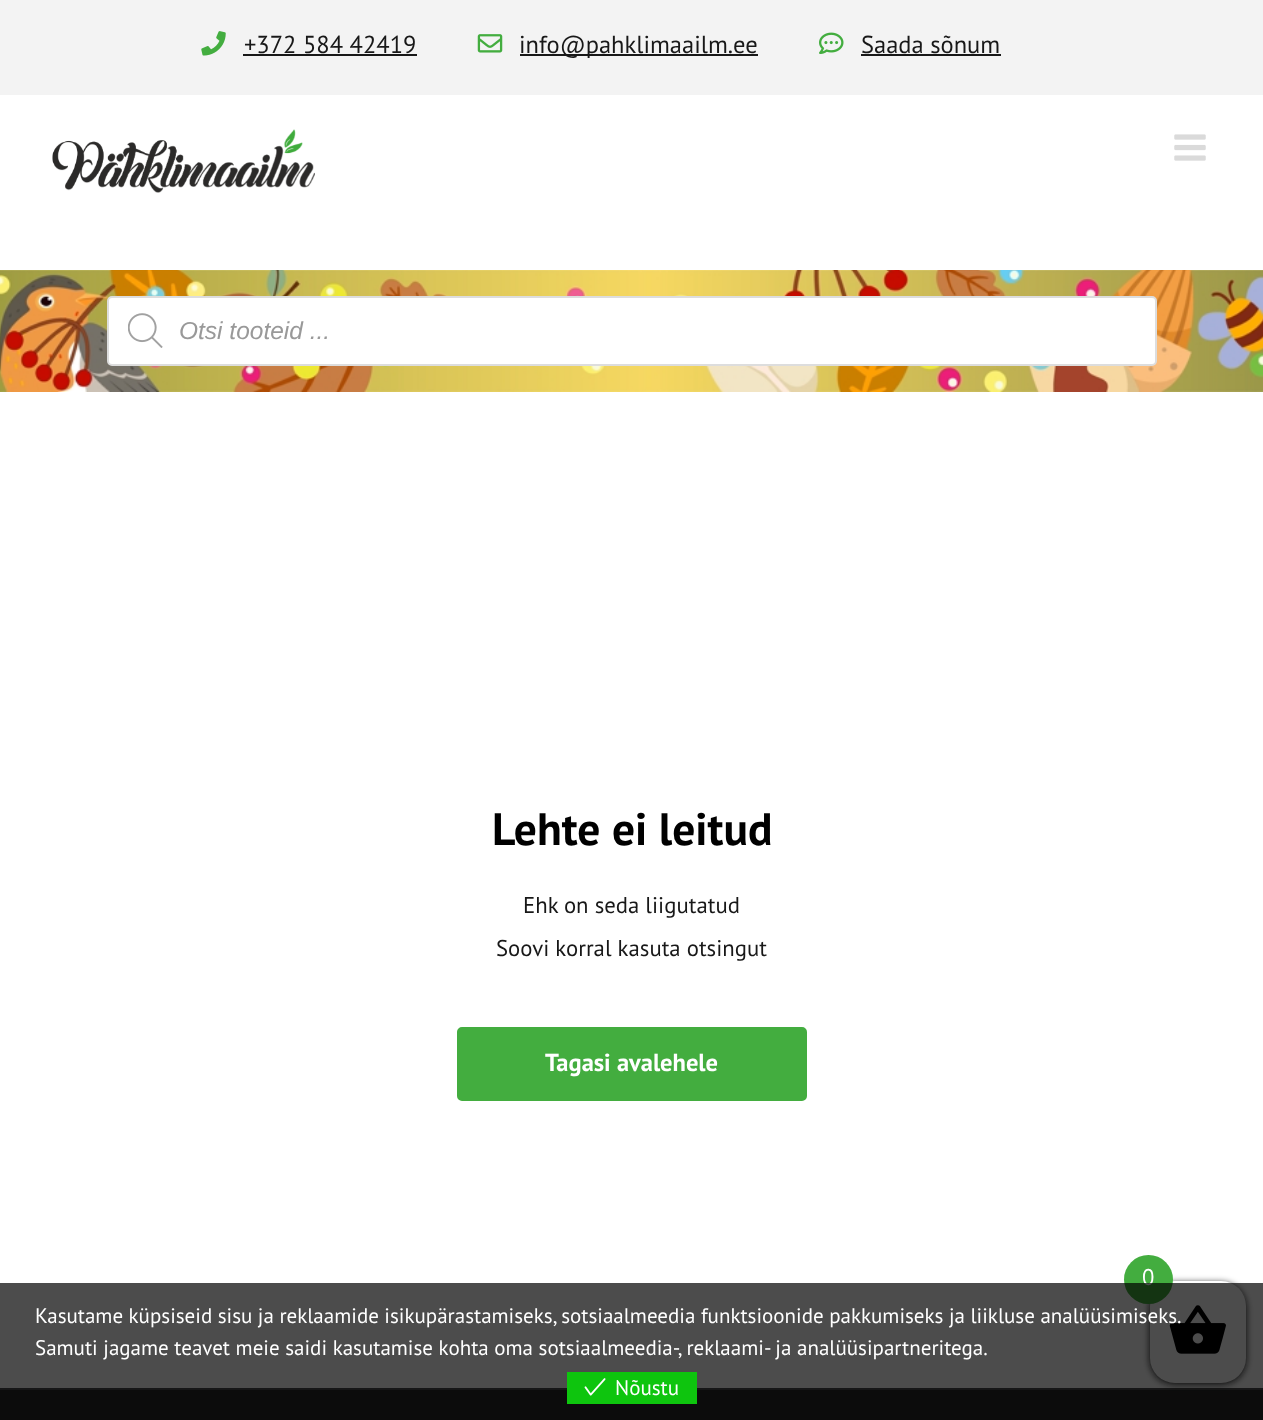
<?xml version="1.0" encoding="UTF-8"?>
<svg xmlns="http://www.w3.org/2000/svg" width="1263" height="1420">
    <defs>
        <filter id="blur1" x="-50%" y="-200%" width="200%" height="500%"><feGaussianBlur stdDeviation="3.5"/></filter>
    </defs>
    <rect width="100%" height="100%" fill="#FFFFFF"/>
    <rect x="0" y="0" width="1263" height="95" fill="#F3F3F3"/>
    <image x="201" y="31" width="25" height="25" href="img_01.png"/>
    <text x="244" y="53" font-family="PT Sans" font-size="24.5" fill="#181818">+372 584 42419</text>
    <rect x="243" y="54" width="174" height="2" fill="#181818"/>
    <image x="477" y="34" width="26" height="19" href="img_02.png"/>
    <rect x="520" y="54" width="238" height="2" fill="#181818"/>
    <text x="519" y="53" font-family="PT Sans" font-size="24.5" fill="#181818">info@pahklimaailm.ee</text>
    <image x="819" y="32" width="25" height="22" href="img_03.png"/>
    <text x="861" y="53" font-family="PT Sans" font-size="24.5" fill="#181818">Saada sõnum</text>
    <rect x="861" y="54" width="140" height="2" fill="#181818"/>
    <image x="52" y="129" width="263" height="64" href="img_04.png"/>
    <image x="1174" y="134" width="32" height="27" href="img_05.png"/>
    <image x="0" y="270" width="1263" height="122" href="img_06.png"/>
    <rect x="108" y="297" width="1048" height="68" rx="4" fill="#FFFFFF" stroke="#DDDDDD" stroke-width="2"/>
    <image x="128" y="313" width="35" height="35" href="img_07.png"/>
    <text x="179" y="339" font-family="Liberation Sans" font-size="24.5" font-style="italic" fill="#999999">Otsi tooteid ...</text>
    <text x="492" y="845" font-family="PT Sans" font-size="45.5" font-weight="700" fill="#000000">Lehte ei leitud</text>
    <text x="523" y="913" font-family="PT Sans" font-size="22.75" fill="#181818">Ehk on seda liigutatud</text>
    <text x="496" y="956" font-family="PT Sans" font-size="22.75" fill="#181818">Soovi korral kasuta otsingut</text>
    <rect x="458" y="1028" width="348" height="72" rx="4" fill="#43AD3F" stroke="#43AD3F" stroke-width="2"/>
    <text x="545" y="1071" font-family="PT Sans" font-size="24.5" font-weight="700" fill="#FFFFFF">Tagasi avalehele</text>
    <rect x="0" y="1390" width="1263" height="30" fill="#282A2B"/>
    <rect x="0" y="1388" width="1263" height="2" fill="#4B4C4D"/>
    <rect x="1150" y="1283" width="96" height="101" rx="25" fill="#181818" filter="url(#blur1)"/>
    <rect x="1150" y="1281" width="96" height="102" rx="25" fill="#FFFFFF"/>
    <circle cx="1148.5" cy="1279.5" r="24.5" fill="#43AD3F"/>
    <text x="1142" y="1285" font-family="PT Sans" font-size="22.75" fill="#FFFFFF">0</text>
    <image x="1169" y="1305" width="57" height="49" href="img_08.png"/>
    <rect x="0" y="1283" width="1263" height="137" fill="#000000" fill-opacity="0.7"/>
    <text font-family="PT Sans" font-size="21" fill="#FFFFFF">
        <tspan x="35" y="1323" word-spacing="-0.1">Kasutame küpsiseid sisu ja reklaamide isikupärastamiseks, sotsiaalmeedia funktsioonide pakkumiseks ja liikluse analüüsimiseks.</tspan>
        <tspan x="35" y="1355">Samuti jagame teavet meie saidi kasutamise kohta oma sotsiaalmeedia-, reklaami- ja analüüsipartneritega.</tspan>
    </text>
    <rect x="567" y="1372" width="130" height="32" fill="#0EC50E"/>
    <image x="584" y="1378" width="22" height="18" href="img_09.png"/>
    <text x="615" y="1395" font-family="PT Sans" font-size="21" fill="#FFFFFF">Nõustu</text>
</svg>
